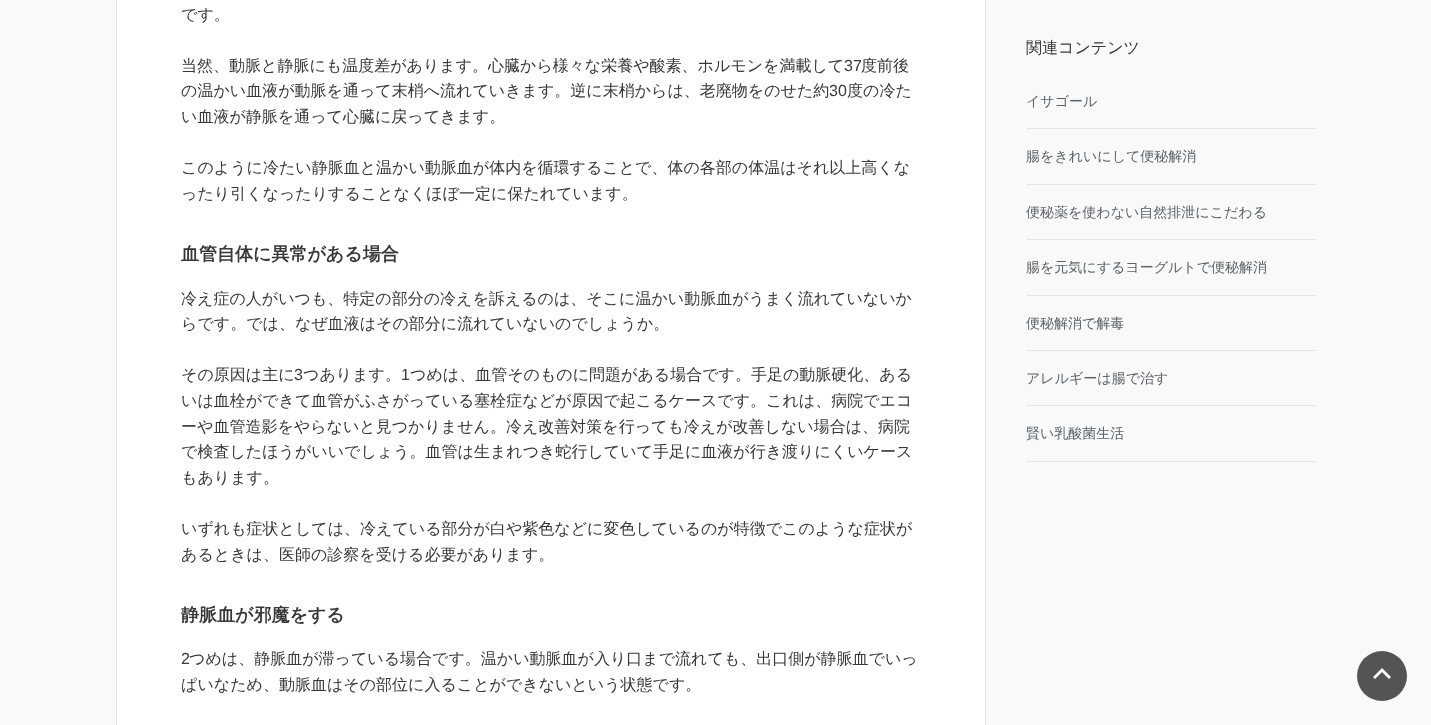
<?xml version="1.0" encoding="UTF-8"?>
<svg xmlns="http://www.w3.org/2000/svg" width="1431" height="725">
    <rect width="100%" height="100%" fill="#F9F9F9"/>
    <rect x="116.5" y="-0.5" width="869" height="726" fill="#FFFFFF" stroke="#E5E5E5"/>
    <text x="181" y="20" font-family="WenQuanYi Zen Hei" font-size="16" font-weight="500" fill="#383838">です。</text>
    <text x="181" y="71" font-family="WenQuanYi Zen Hei" font-size="16" font-weight="500" fill="#383838">当然、動脈と静脈にも温度差があります。心臓から様々な栄養や酸素、ホルモンを満載して</text>
    <text x="844" y="71" font-family="Liberation Sans" font-size="16" fill="#383838">37</text>
    <text x="861" y="71" font-family="WenQuanYi Zen Hei" font-size="16" font-weight="500" fill="#383838">度前後</text>
    <text x="181" y="96" font-family="WenQuanYi Zen Hei" font-size="16" font-weight="500" fill="#383838">の温かい血液が動脈を通って末梢へ流れていきます。逆に末梢からは、老廃物をのせた約</text>
    <text x="829" y="96" font-family="Liberation Sans" font-size="16" fill="#383838">30</text>
    <text x="847" y="96" font-family="WenQuanYi Zen Hei" font-size="16" font-weight="500" fill="#383838">度の冷た</text>
    <text x="181" y="122" font-family="WenQuanYi Zen Hei" font-size="16" font-weight="500" fill="#383838">い血液が静脈を通って心臓に戻ってきます。</text>
    <text font-family="WenQuanYi Zen Hei" font-size="16" font-weight="500" fill="#383838">
        <tspan x="181" y="173">このように冷たい静脈血と温かい動脈血が体内を循環することで、体の各部の体温はそれ以上高くな</tspan>
        <tspan x="181" y="199">ったり引くなったりすることなくほぼ一定に保たれています。</tspan>
    </text>
    <text x="181" y="260" font-family="WenQuanYi Zen Hei" font-size="18" font-weight="700" fill="#383838">血管自体に異常がある場合</text>
    <text font-family="WenQuanYi Zen Hei" font-size="16" font-weight="500" fill="#383838">
        <tspan x="181" y="304">冷え症の人がいつも、特定の部分の冷えを訴えるのは、そこに温かい動脈血がうまく流れていないか</tspan>
        <tspan x="181" y="329">らです。では、なぜ血液はその部分に流れていないのでしょうか。</tspan>
    </text>
    <text x="181" y="380" font-family="WenQuanYi Zen Hei" font-size="16" font-weight="500" fill="#383838">その原因は主に</text>
    <text x="294" y="380" font-family="Liberation Sans" font-size="16" fill="#383838">3</text>
    <text x="303" y="380" font-family="WenQuanYi Zen Hei" font-size="16" font-weight="500" fill="#383838">つあります。</text>
    <text x="401" y="380" font-family="Liberation Sans" font-size="16" fill="#383838">1</text>
    <text x="410" y="380" font-family="WenQuanYi Zen Hei" font-size="16" font-weight="500" fill="#383838">つめは、血管そのものに問題がある場合です。手足の動脈硬化、ある</text>
    <text font-family="WenQuanYi Zen Hei" font-size="16" font-weight="500" fill="#383838">
        <tspan x="181" y="406">いは血栓ができて血管がふさがっている塞栓症などが原因で起こるケースです。これは、病院でエコ</tspan>
        <tspan x="181" y="432">ーや血管造影をやらないと見つかりません。冷え改善対策を行っても冷えが改善しない場合は、病院</tspan>
        <tspan x="181" y="457">で検査したほうがいいでしょう。血管は生まれつき蛇行していて手足に血液が行き渡りにくいケース</tspan>
        <tspan x="181" y="483">もあります。</tspan>
    </text>
    <text font-family="WenQuanYi Zen Hei" font-size="16" font-weight="500" fill="#383838">
        <tspan x="181" y="534">いずれも症状としては、冷えている部分が白や紫色などに変色しているのが特徴でこのような症状が</tspan>
        <tspan x="181" y="560">あるときは、医師の診察を受ける必要があります。</tspan>
    </text>
    <text x="181" y="621" font-family="WenQuanYi Zen Hei" font-size="18" font-weight="700" fill="#383838">静脈血が邪魔をする</text>
    <text x="181" y="664" font-family="Liberation Sans" font-size="16" fill="#383838">2</text>
    <text x="189" y="664" font-family="WenQuanYi Zen Hei" font-size="16" font-weight="500" fill="#383838">つめは、静脈血が滞っている場合です。温かい動脈血が入り口まで流れても、出口側が静脈血でいっ</text>
    <text x="181" y="690" font-family="WenQuanYi Zen Hei" font-size="16" font-weight="500" fill="#383838">ぱいなため、動脈血はその部位に入ることができないという状態です。</text>
    <text x="1026" y="53" font-family="WenQuanYi Zen Hei" font-size="16" font-weight="500" fill="#383838">関連コンテンツ</text>
    <rect x="1026" y="128" width="290" height="1" fill="#E5E5E5"/>
    <text x="1026" y="106" font-family="WenQuanYi Zen Hei" font-size="14" font-weight="500" fill="#5E6265">イサゴール</text>
    <rect x="1026" y="184" width="290" height="1" fill="#E5E5E5"/>
    <text x="1026" y="161" font-family="WenQuanYi Zen Hei" font-size="14" font-weight="500" fill="#5E6265">腸をきれいにして便秘解消</text>
    <rect x="1026" y="239" width="290" height="1" fill="#E5E5E5"/>
    <text x="1026" y="217" font-family="WenQuanYi Zen Hei" font-size="14" font-weight="500" fill="#5E6265">便秘薬を使わない自然排泄にこだわる</text>
    <rect x="1026" y="295" width="290" height="1" fill="#E5E5E5"/>
    <text x="1026" y="272" font-family="WenQuanYi Zen Hei" font-size="14" font-weight="500" fill="#5E6265">腸を元気にするヨーグルトで便秘解消</text>
    <rect x="1026" y="350" width="290" height="1" fill="#E5E5E5"/>
    <text x="1026" y="328" font-family="WenQuanYi Zen Hei" font-size="14" font-weight="500" fill="#5E6265">便秘解消で解毒</text>
    <rect x="1026" y="405" width="290" height="1" fill="#E5E5E5"/>
    <text x="1026" y="383" font-family="WenQuanYi Zen Hei" font-size="14" font-weight="500" fill="#5E6265">アレルギーは腸で治す</text>
    <rect x="1026" y="461" width="290" height="1" fill="#E5E5E5"/>
    <text x="1026" y="438" font-family="WenQuanYi Zen Hei" font-size="14" font-weight="500" fill="#5E6265">賢い乳酸菌生活</text>
    <circle cx="1382" cy="676" r="25" fill="#545454"/>
    <path d="M 1375 679 L 1382 672 L 1389 679 L 1391 677 L 1382 668 L 1373 677 Z" fill="#FEFEFE"/>
</svg>
